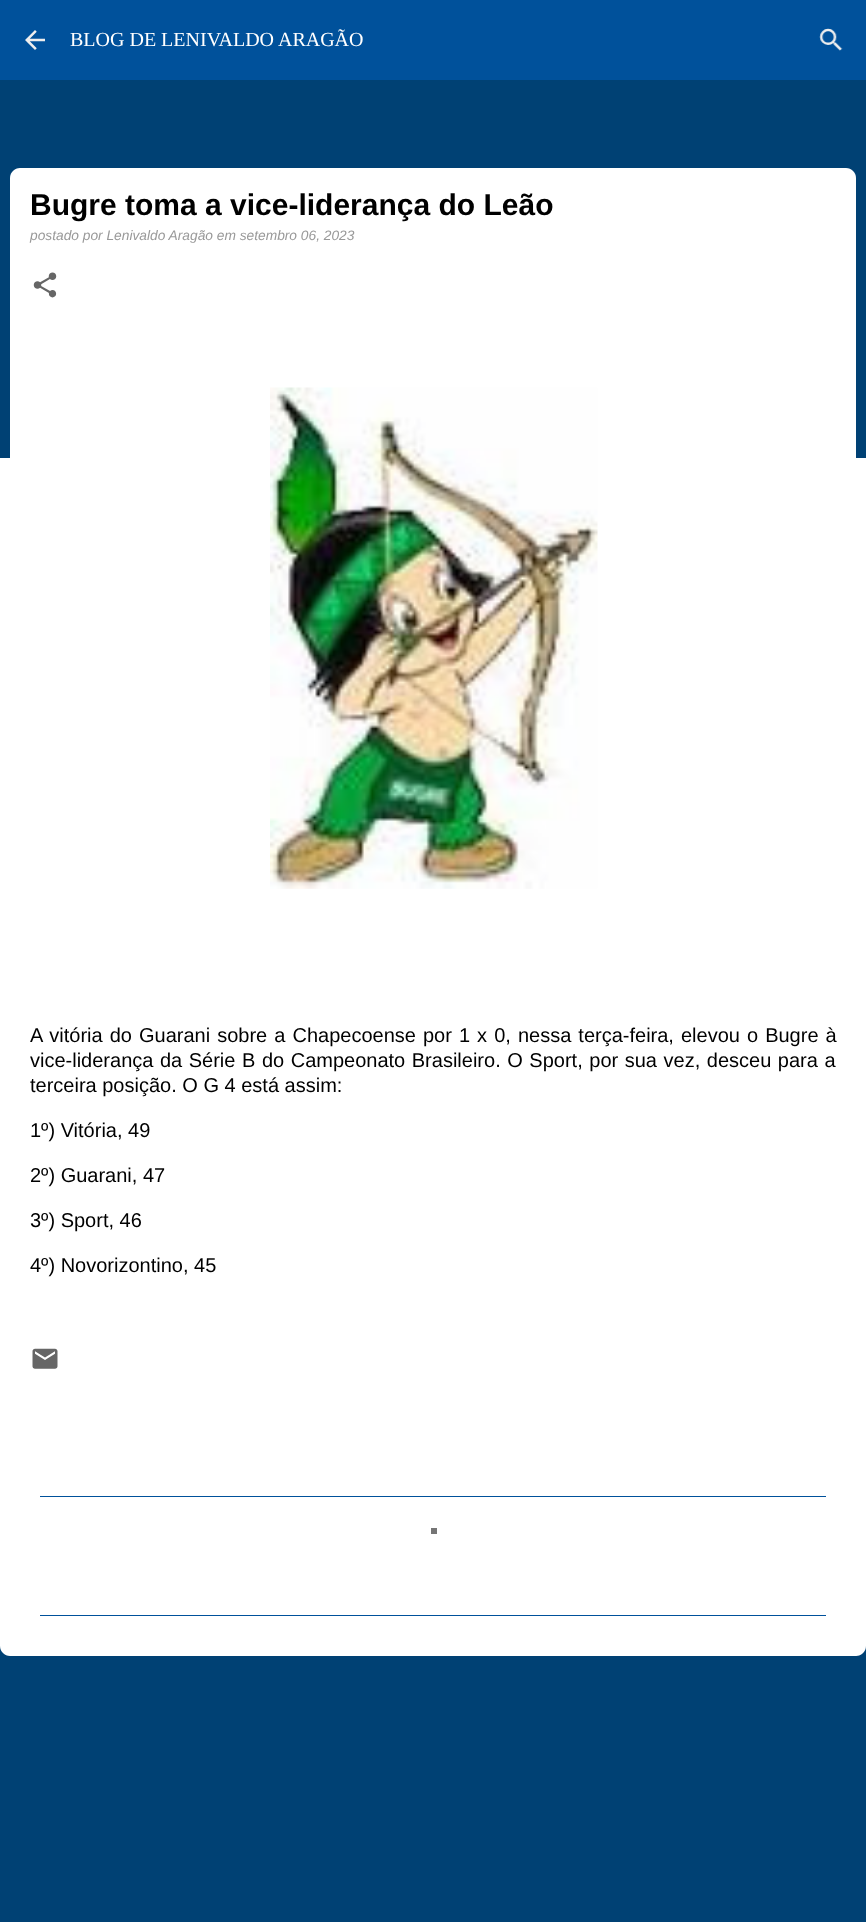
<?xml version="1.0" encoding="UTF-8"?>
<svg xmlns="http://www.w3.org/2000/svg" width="866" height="1922">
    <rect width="100%" height="100%" fill="#004174"/>
    <rect x="0" y="0" width="866" height="80" fill="#00519B"/>
    <image x="25" y="30" width="20" height="20" href="img_01.png"/>
    <text x="70" y="46" font-family="Liberation Serif" font-size="20" fill="#FFFFFF">BLOG DE LENIVALDO ARAGÃO</text>
    <image x="819" y="28" width="24" height="23" href="img_02.png"/>
    <rect x="0" y="458" width="866" height="1038" fill="#FFFFFF"/>
    <path d="M 20 168 H 846 C 851.5 168 856 172.5 856 178 V 1496 H 10 V 178 C 10 172.5 14.5 168 20 168 Z" fill="#FFFFFF"/>
    <text x="30" y="215" font-family="Liberation Sans" font-size="30" font-weight="700" fill="#000000">Bugre toma a vice-liderança do Leão</text>
    <text x="30" y="240" font-family="Liberation Sans" font-size="13.75" font-style="italic" fill="#999999">postado por Lenivaldo Aragão em setembro 06, 2023</text>
    <image x="33" y="272" width="24" height="26" href="img_03.png"/>
    <image x="270" y="387" width="328" height="502" href="img_04.png"/>
    <text font-family="Liberation Sans" font-size="20" fill="#000000">
        <tspan x="30" y="1042" word-spacing="1.5">A vitória do Guarani sobre a Chapecoense por 1 x 0, nessa terça-feira, elevou o Bugre à</tspan>
        <tspan x="30" y="1067" word-spacing="1">vice-liderança da Série B do Campeonato Brasileiro. O Sport, por sua vez, desceu para a</tspan>
        <tspan x="30" y="1092">terceira posição. O G 4 está assim:</tspan>
    </text>
    <text x="30" y="1137" font-family="Liberation Sans" font-size="20" fill="#000000">1º) Vitória, 49</text>
    <text x="30" y="1182" font-family="Liberation Sans" font-size="20" fill="#000000">2º) Guarani, 47</text>
    <text x="30" y="1227" font-family="Liberation Sans" font-size="20" fill="#000000">3º) Sport, 46</text>
    <text x="30" y="1272" font-family="Liberation Sans" font-size="20" fill="#000000">4º) Novorizontino, 45</text>
    <image x="32" y="1348" width="26" height="21" href="img_05.png"/>
    <path d="M 0 1496 H 866 V 1646 C 866 1651.5 861.5 1656 856 1656 H 10 C 4.5 1656 0 1651.5 0 1646 Z" fill="#FFFFFF"/>
    <rect x="40" y="1496" width="786" height="1" fill="#00519B"/>
    <rect x="40" y="1615" width="786" height="1" fill="#00519B"/>
    <rect x="431" y="1528" width="6" height="6" fill="#757575"/>
</svg>
